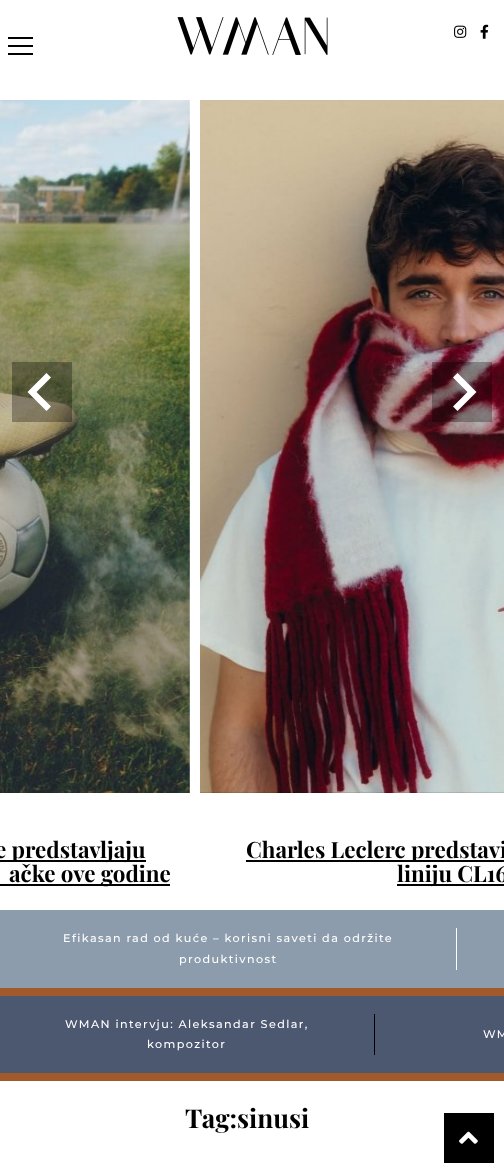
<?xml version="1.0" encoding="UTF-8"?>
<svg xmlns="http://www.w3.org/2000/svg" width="504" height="1173">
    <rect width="100%" height="100%" fill="#FFFFFF"/>
    <image x="177" y="17" width="151" height="38" href="img_01.png"/>
    <image x="454" y="25" width="13" height="13" href="img_02.png"/>
    <image x="480" y="24" width="9" height="15" href="img_03.png"/>
    <rect x="8" y="37" width="25" height="2" fill="#000000"/>
    <rect x="8" y="45" width="25" height="2" fill="#000000"/>
    <rect x="8" y="53" width="25" height="2" fill="#000000"/>
    <image x="0" y="100" width="190" height="693" href="img_04.png"/>
    <rect x="12" y="362" width="60" height="60" fill="#000000" fill-opacity="0.3"/>
    <path d="M 46.5 373 L 51 377.5 L 36.5 392 L 51 406.5 L 46.5 411 L 27.5 392 Z" fill="#FFFFFF"/>
    <image x="200" y="100" width="304" height="693" href="img_05.png"/>
    <rect x="432" y="362" width="60" height="60" fill="#000000" fill-opacity="0.3"/>
    <path d="M 457.5 373 L 453 377.5 L 467.5 392 L 453 406.5 L 457.5 411 L 476.5 392 Z" fill="#FFFFFF"/>
    <rect x="0" y="860" width="146" height="2" fill="#000000"/>
    <text x="-5" y="858" font-family="Playfair Display" font-size="22.4" font-weight="700" fill="#000000">e predstavljaju</text>
    <rect x="0" y="884" width="170" height="2" fill="#000000"/>
    <text x="9" y="882" font-family="Playfair Display" font-size="22.4" font-weight="700" fill="#000000">ačke ove godine</text>
    <rect x="246" y="860" width="258" height="2" fill="#000000"/>
    <text x="246" y="858" font-family="Playfair Display" font-size="22.4" font-weight="700" fill="#000000">Charles Leclerc predstavi</text>
    <rect x="397" y="884" width="107" height="2" fill="#000000"/>
    <text x="397" y="882" font-family="Playfair Display" font-size="22.4" font-weight="700" fill="#000000">liniju CL16</text>
    <rect x="0" y="910" width="504" height="78" fill="#8C9CAC"/>
    <rect x="0" y="988" width="504" height="8" fill="#A2592C"/>
    <rect x="456" y="928" width="1" height="42" fill="#FFFFFF"/>
    <text x="63" y="942" font-family="Montserrat" font-size="11.2" font-weight="500" letter-spacing="1.4" fill="#FFFFFF">Efikasan rad od kuće – korisni saveti da održite</text>
    <text x="179" y="963" font-family="Montserrat" font-size="11.2" font-weight="500" letter-spacing="1.4" fill="#FFFFFF">produktivnost</text>
    <rect x="0" y="996" width="504" height="77" fill="#4B5870"/>
    <rect x="0" y="1073" width="504" height="8" fill="#A2592C"/>
    <rect x="374" y="1014" width="1" height="41" fill="#000000"/>
    <text x="65" y="1028" font-family="Montserrat" font-size="11.2" font-weight="500" letter-spacing="1.4" fill="#FFFFFF">WMAN intervju: Aleksandar Sedlar,</text>
    <text x="147" y="1048" font-family="Montserrat" font-size="11.2" font-weight="500" letter-spacing="1.4" fill="#FFFFFF">kompozitor</text>
    <text x="483" y="1038" font-family="Montserrat" font-size="11.2" font-weight="500" letter-spacing="1.4" fill="#FFFFFF">WM</text>
    <text x="185" y="1128" font-family="Playfair Display" font-size="26" font-weight="700" fill="#000000">Tag:sinusi</text>
    <rect x="444" y="1113" width="50" height="50" fill="#000000"/>
    <image x="459" y="1131" width="19" height="13" href="img_06.png"/>
</svg>
